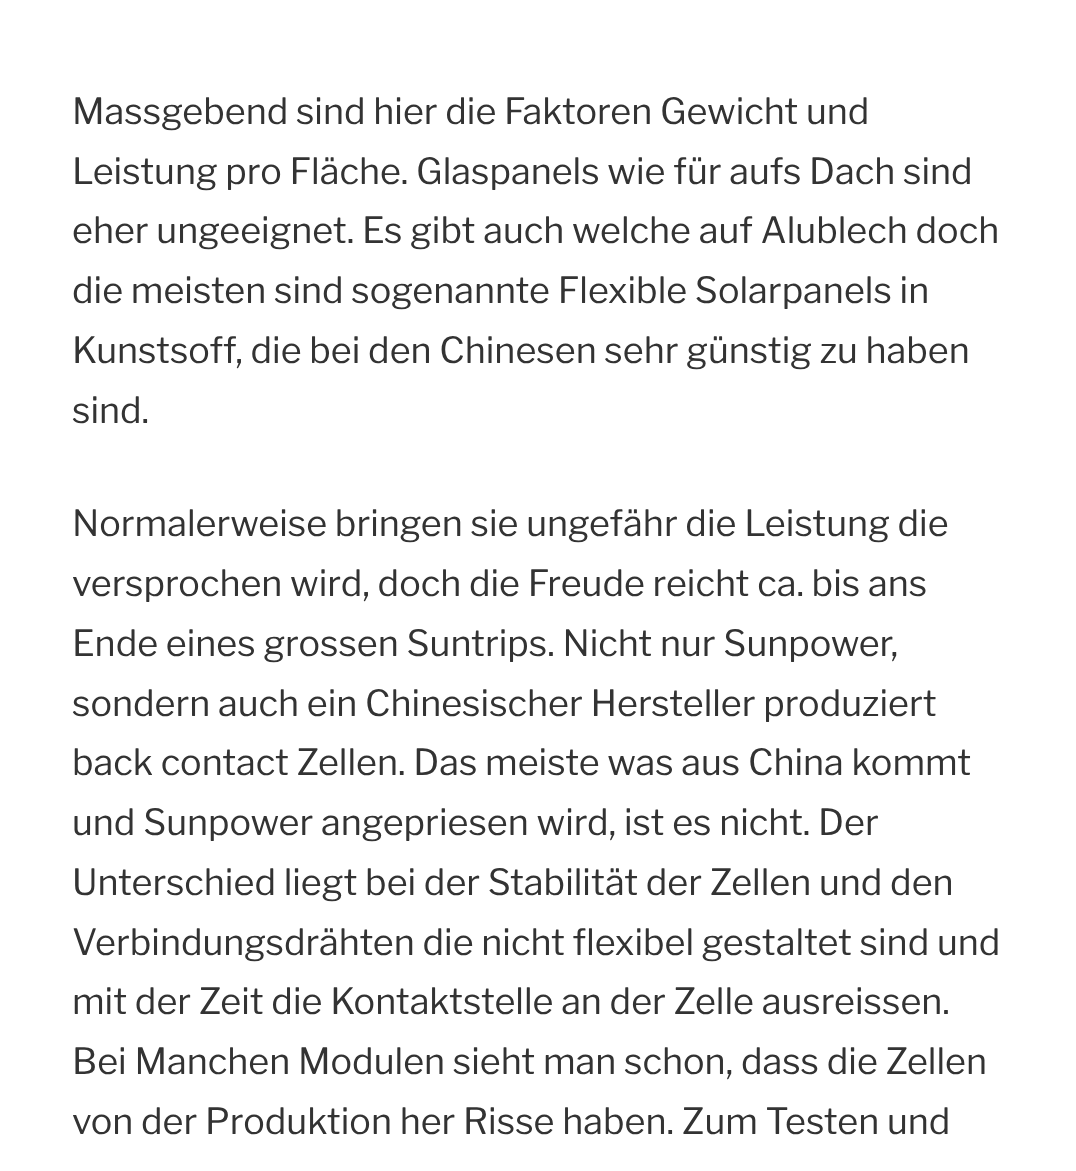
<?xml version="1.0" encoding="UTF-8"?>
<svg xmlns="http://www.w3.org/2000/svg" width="1076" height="1171">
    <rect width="100%" height="100%" fill="#FFFFFF"/>
    <text font-family="Libre Franklin" font-size="36" font-weight="100" fill="#333333">
        <tspan x="72" y="124">Massgebend sind hier die Faktoren Gewicht und</tspan>
        <tspan x="72" y="184">Leistung pro Fläche. Glaspanels wie für aufs Dach sind</tspan>
        <tspan x="72" y="243">eher ungeeignet. Es gibt auch welche auf Alublech doch</tspan>
        <tspan x="72" y="303">die meisten sind sogenannte Flexible Solarpanels in</tspan>
        <tspan x="72" y="363">Kunstsoff, die bei den Chinesen sehr günstig zu haben</tspan>
        <tspan x="72" y="423">sind.</tspan>
    </text>
    <text font-family="Libre Franklin" font-size="36" font-weight="100" fill="#333333">
        <tspan x="72" y="536">Normalerweise bringen sie ungefähr die Leistung die</tspan>
        <tspan x="72" y="596">versprochen wird, doch die Freude reicht ca. bis ans</tspan>
        <tspan x="72" y="656">Ende eines grossen Suntrips. Nicht nur Sunpower,</tspan>
        <tspan x="72" y="716">sondern auch ein Chinesischer Hersteller produziert</tspan>
        <tspan x="72" y="775">back contact Zellen. Das meiste was aus China kommt</tspan>
        <tspan x="72" y="835">und Sunpower angepriesen wird, ist es nicht. Der</tspan>
        <tspan x="72" y="895">Unterschied liegt bei der Stabilität der Zellen und den</tspan>
        <tspan x="72" y="955">Verbindungsdrähten die nicht flexibel gestaltet sind und</tspan>
        <tspan x="72" y="1014">mit der Zeit die Kontaktstelle an der Zelle ausreissen.</tspan>
        <tspan x="72" y="1074">Bei Manchen Modulen sieht man schon, dass die Zellen</tspan>
        <tspan x="72" y="1134">von der Produktion her Risse haben. Zum Testen und</tspan>
    </text>
</svg>
